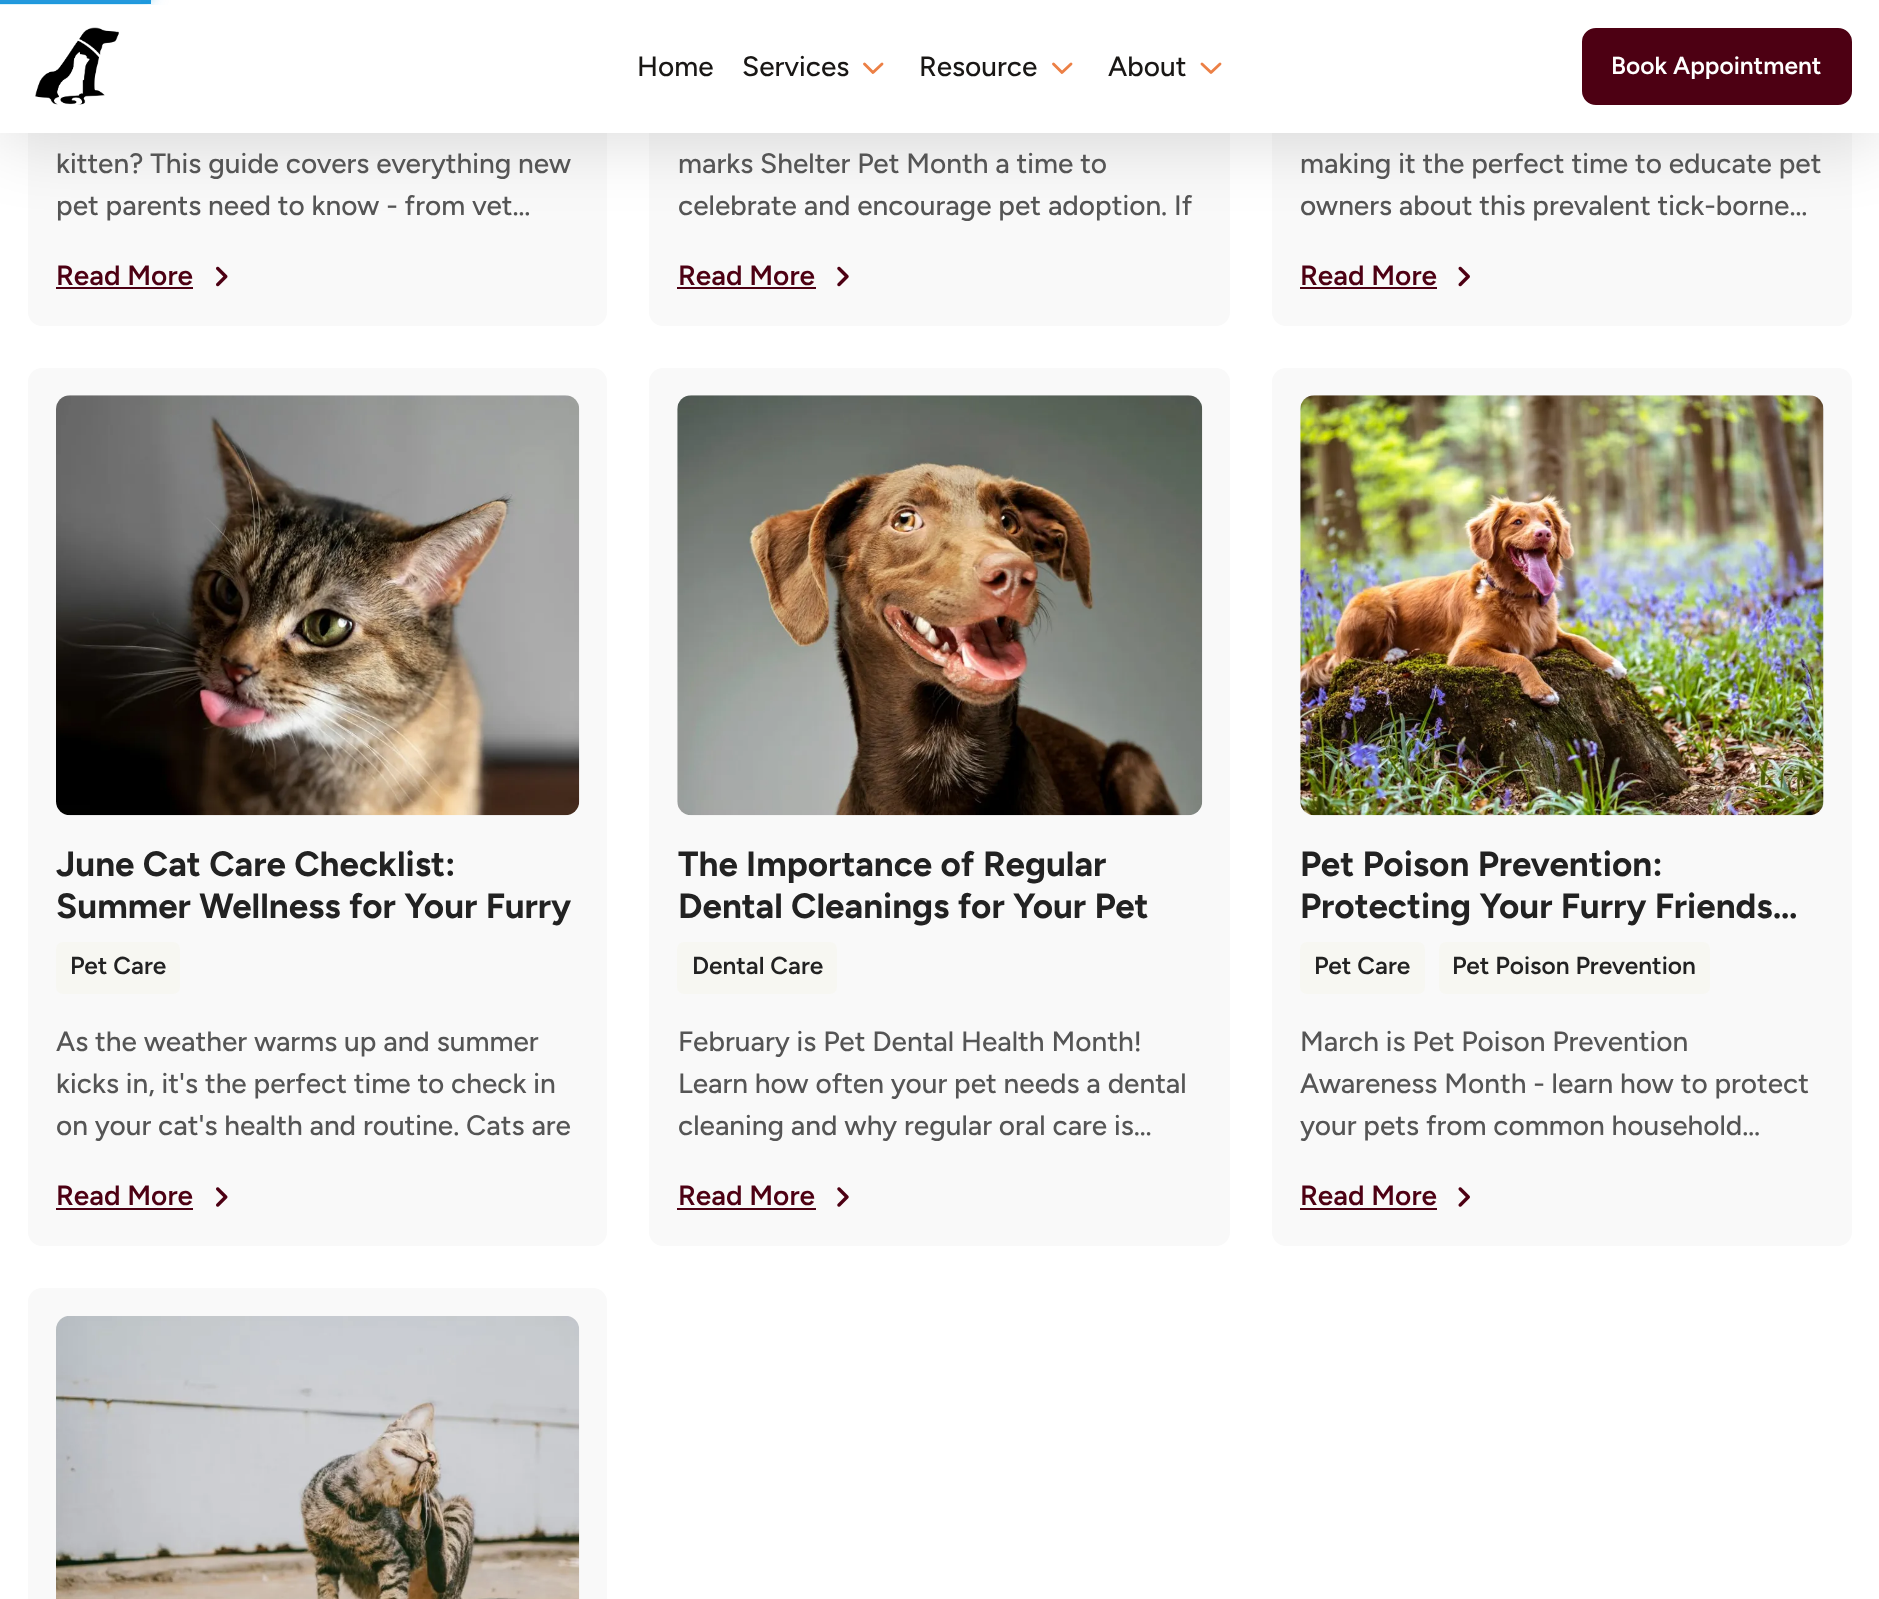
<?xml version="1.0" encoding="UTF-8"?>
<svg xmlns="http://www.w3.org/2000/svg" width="1879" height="1599">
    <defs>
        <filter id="blur1" x="-50%" y="-200%" width="200%" height="500%"><feGaussianBlur stdDeviation="35"/></filter>
        <filter id="blur2" x="-50%" y="-200%" width="200%" height="500%"><feGaussianBlur stdDeviation="4.5"/></filter>
        <filter id="blur3" x="-50%" y="-200%" width="200%" height="500%"><feGaussianBlur stdDeviation="9"/></filter>
    </defs>
    <rect width="100%" height="100%" fill="#FFFFFF"/>
    <rect x="28" y="-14" width="579" height="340" rx="14" fill="#F9F9F9"/>
    <rect x="649" y="-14" width="581" height="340" rx="14" fill="#F9F9F9"/>
    <rect x="1272" y="-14" width="580" height="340" rx="14" fill="#F9F9F9"/>
    <rect x="0" y="7" width="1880" height="133" fill="#000000" fill-opacity="0.14" filter="url(#blur1)"/>
    <rect x="0" y="0" width="1879" height="133" fill="#FFFFFF"/>
    <rect x="0" y="0" width="151" height="4" fill="#2299DD"/>
    <rect x="-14" y="-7" width="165" height="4" fill="#2299DD" filter="url(#blur2)"/>
    <rect x="-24" y="-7" width="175" height="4" fill="#2299DD" filter="url(#blur3)"/>
    <image x="35" y="27" width="84" height="78" href="img_01.png"/>
    <text x="637" y="76" font-family="Figtree" font-size="28" font-weight="500" fill="#191715">Home</text>
    <text x="742" y="76" font-family="Figtree" font-size="28" font-weight="500" fill="#191715">Services</text>
    <path d="M 864.5 64 L 873 72.5 L 882 64" fill="none" stroke="#EC8046" stroke-width="2.9" stroke-linecap="round" stroke-linejoin="round"/>
    <text x="919" y="76" font-family="Figtree" font-size="28" font-weight="500" fill="#191715">Resource</text>
    <path d="M 1053.5 64 L 1062 72.5 L 1071 64" fill="none" stroke="#EC8046" stroke-width="2.9" stroke-linecap="round" stroke-linejoin="round"/>
    <text x="1108" y="76" font-family="Figtree" font-size="28" font-weight="500" fill="#191715">About</text>
    <path d="M 1202 64 L 1211 72.5 L 1220 64" fill="none" stroke="#EC8046" stroke-width="2.9" stroke-linecap="round" stroke-linejoin="round"/>
    <rect x="1583" y="29" width="268" height="75" rx="13" fill="#4D0013" stroke="#4D0013" stroke-width="2"/>
    <text x="1611" y="74" font-family="Figtree" font-size="24.5" font-weight="600" fill="#FFFFFF">Book Appointment</text>
    <text font-family="Figtree" font-size="28" font-weight="500" fill="#555555">
        <tspan x="56" y="173">kitten? This guide covers everything new</tspan>
        <tspan x="56" y="215">pet parents need to know - from vet…</tspan>
    </text>
    <text x="56" y="285" font-family="Figtree" font-size="28" font-weight="600" fill="#4D0013">Read More</text>
    <rect x="56" y="287" width="137" height="2" fill="#4D0013"/>
    <image x="216" y="266" width="12" height="21" href="img_02.png"/>
    <text font-family="Figtree" font-size="28" font-weight="500" fill="#555555">
        <tspan x="678" y="173">marks Shelter Pet Month a time to</tspan>
        <tspan x="678" y="215">celebrate and encourage pet adoption. If</tspan>
    </text>
    <text x="678" y="285" font-family="Figtree" font-size="28" font-weight="600" fill="#4D0013">Read More</text>
    <rect x="677" y="287" width="139" height="2" fill="#4D0013"/>
    <image x="837" y="266" width="12" height="21" href="img_03.png"/>
    <text font-family="Figtree" font-size="28" font-weight="500" fill="#555555">
        <tspan x="1300" y="173">making it the perfect time to educate pet</tspan>
        <tspan x="1300" y="215">owners about this prevalent tick-borne…</tspan>
    </text>
    <text x="1300" y="285" font-family="Figtree" font-size="28" font-weight="600" fill="#4D0013">Read More</text>
    <rect x="1300" y="287" width="137" height="2" fill="#4D0013"/>
    <image x="1458" y="266" width="12" height="21" href="img_04.png"/>
    <rect x="28" y="368" width="579" height="878" rx="14" fill="#F9F9F9"/>
    <image x="56" y="395" width="524" height="421" href="img_05.png"/>
    <text font-family="Figtree" font-size="35" font-weight="700" fill="#222222">
        <tspan x="56" y="876">June Cat Care Checklist:</tspan>
        <tspan x="56" y="918">Summer Wellness for Your Furry</tspan>
    </text>
    <rect x="56" y="942" width="124" height="52" rx="7" fill="#F7F7F2"/>
    <text x="70" y="974" font-family="Figtree" font-size="24.5" font-weight="600" fill="#222222">Pet Care</text>
    <text font-family="Figtree" font-size="28" font-weight="500" fill="#555555">
        <tspan x="56" y="1051">As the weather warms up and summer</tspan>
        <tspan x="56" y="1093">kicks in, it's the perfect time to check in</tspan>
        <tspan x="56" y="1135">on your cat's health and routine. Cats are</tspan>
    </text>
    <text x="56" y="1205" font-family="Figtree" font-size="28" font-weight="600" fill="#4D0013">Read More</text>
    <rect x="56" y="1208" width="137" height="2" fill="#4D0013"/>
    <image x="216" y="1187" width="12" height="20" href="img_06.png"/>
    <rect x="649" y="368" width="581" height="878" rx="14" fill="#F9F9F9"/>
    <image x="677" y="395" width="526" height="421" href="img_07.png"/>
    <text font-family="Figtree" font-size="35" font-weight="700" fill="#222222">
        <tspan x="678" y="876">The Importance of Regular</tspan>
        <tspan x="678" y="918">Dental Cleanings for Your Pet</tspan>
    </text>
    <rect x="677" y="942" width="160" height="52" rx="7" fill="#F7F7F2"/>
    <text x="692" y="974" font-family="Figtree" font-size="24.5" font-weight="600" fill="#222222">Dental Care</text>
    <text font-family="Figtree" font-size="28" font-weight="500" fill="#555555">
        <tspan x="678" y="1051">February is Pet Dental Health Month!</tspan>
        <tspan x="678" y="1093">Learn how often your pet needs a dental</tspan>
        <tspan x="678" y="1135">cleaning and why regular oral care is…</tspan>
    </text>
    <text x="678" y="1205" font-family="Figtree" font-size="28" font-weight="600" fill="#4D0013">Read More</text>
    <rect x="677" y="1208" width="139" height="2" fill="#4D0013"/>
    <image x="837" y="1187" width="12" height="20" href="img_08.png"/>
    <rect x="1272" y="368" width="580" height="878" rx="14" fill="#F9F9F9"/>
    <image x="1300" y="395" width="524" height="421" href="img_09.png"/>
    <text font-family="Figtree" font-size="35" font-weight="700" fill="#222222">
        <tspan x="1300" y="876">Pet Poison Prevention:</tspan>
        <tspan x="1300" y="918">Protecting Your Furry Friends…</tspan>
    </text>
    <rect x="1300" y="942" width="125" height="52" rx="7" fill="#F7F7F2"/>
    <text x="1314" y="974" font-family="Figtree" font-size="24.5" font-weight="600" fill="#222222">Pet Care</text>
    <rect x="1439" y="942" width="271" height="52" rx="7" fill="#F7F7F2"/>
    <text x="1452" y="974" font-family="Figtree" font-size="24.5" font-weight="600" fill="#222222">Pet Poison Prevention</text>
    <text font-family="Figtree" font-size="28" font-weight="500" fill="#555555">
        <tspan x="1300" y="1051">March is Pet Poison Prevention</tspan>
        <tspan x="1300" y="1093">Awareness Month - learn how to protect</tspan>
        <tspan x="1300" y="1135">your pets from common household…</tspan>
    </text>
    <text x="1300" y="1205" font-family="Figtree" font-size="28" font-weight="600" fill="#4D0013">Read More</text>
    <rect x="1300" y="1208" width="137" height="2" fill="#4D0013"/>
    <image x="1458" y="1187" width="12" height="20" href="img_10.png"/>
    <rect x="28" y="1288" width="579" height="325" rx="14" fill="#F9F9F9"/>
    <image x="56" y="1316" width="524" height="283" href="img_11.png"/>
</svg>
